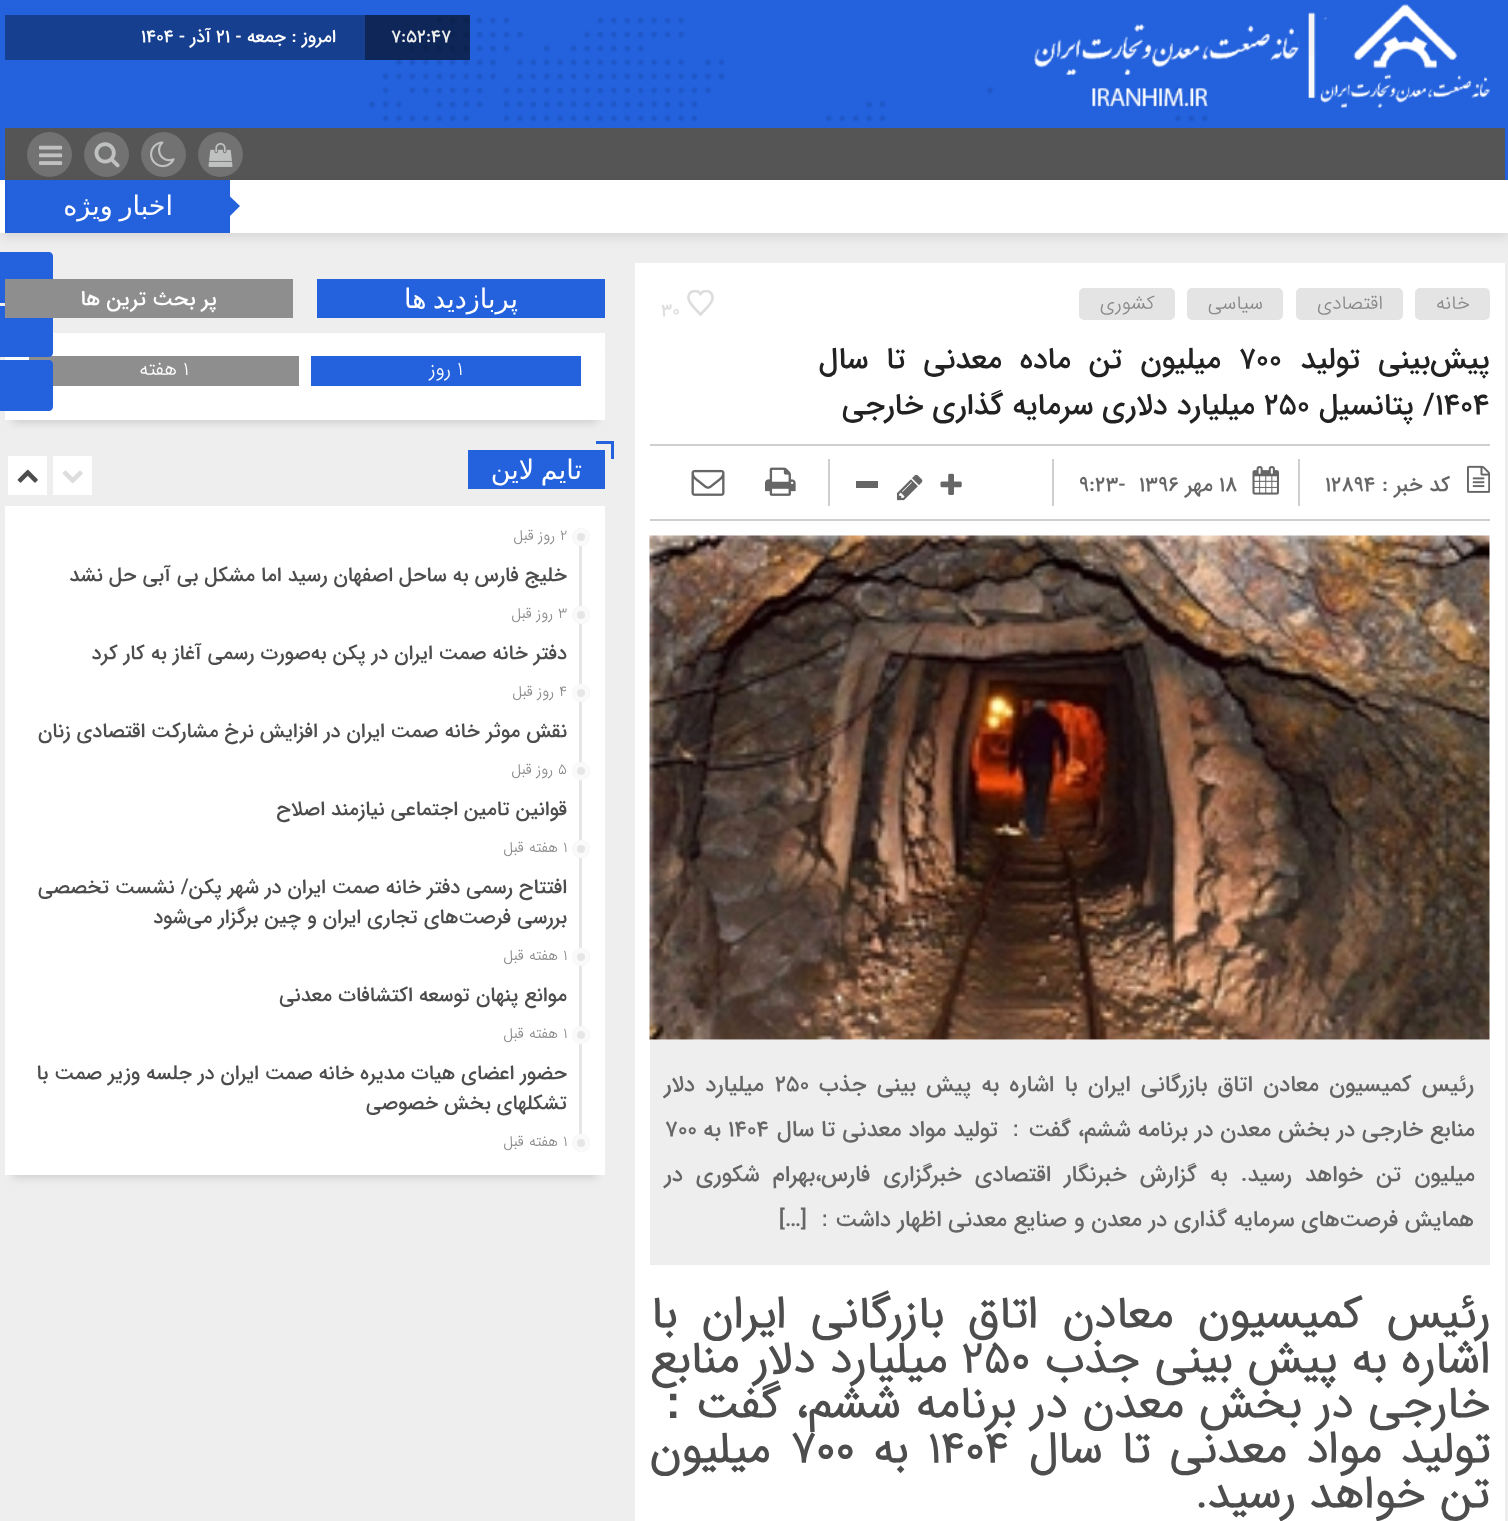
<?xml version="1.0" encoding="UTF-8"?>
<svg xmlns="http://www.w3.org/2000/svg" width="1508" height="1521">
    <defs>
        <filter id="blur1" x="-50%" y="-200%" width="200%" height="500%"><feGaussianBlur stdDeviation="6"/></filter>
        <filter id="blur2" x="-50%" y="-200%" width="200%" height="500%"><feGaussianBlur stdDeviation="4"/></filter>
    </defs>
    <rect width="100%" height="100%" fill="#EEEEEE"/>
    <rect x="0" y="0" width="1508" height="180" fill="#2361DD"/>
    <image x="369" y="17" width="839" height="105" href="img_01.png"/>
    <image x="1034" y="4" width="456" height="104" href="img_02.png"/>
    <rect x="365" y="15" width="105" height="45" fill="#000000" fill-opacity="0.6"/>
    <text x="391" y="42" font-family="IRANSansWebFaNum" font-size="18" font-weight="500" fill="#EEEEEE">7:52:47</text>
    <rect x="5" y="15" width="360" height="45" fill="#173F90"/>
    <text x="336" y="42" font-family="IRANSansWebFaNum" font-size="18" font-weight="500" direction="rtl" fill="#FFFFFF">امروز : جمعه -</text>
    <text x="216" y="42" font-family="IRANSansWebFaNum" font-size="18" font-weight="500" fill="#FFFFFF">۲۱</text>
    <text x="211" y="42" font-family="IRANSansWebFaNum" font-size="18" font-weight="500" direction="rtl" fill="#FFFFFF">آذر -</text>
    <text x="141" y="42" font-family="IRANSansWebFaNum" font-size="18" font-weight="500" fill="#FFFFFF">۱۴۰۴</text>
    <rect x="5" y="128" width="1500" height="52" fill="#555555"/>
    <circle cx="220.5" cy="154.5" r="22.5" fill="#727272"/>
    <image x="208" y="142" width="25" height="25" href="img_03.png"/>
    <circle cx="163.5" cy="154.5" r="22.5" fill="#727272"/>
    <image x="150" y="141" width="25" height="27" href="img_04.png"/>
    <circle cx="106.5" cy="154.5" r="22.5" fill="#727272"/>
    <image x="94" y="142" width="26" height="26" href="img_05.png"/>
    <circle cx="49.5" cy="154.5" r="22.5" fill="#727272"/>
    <image x="39" y="145" width="24" height="20" href="img_06.png"/>
    <rect x="0" y="185" width="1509" height="52" fill="#000000" fill-opacity="0.1" filter="url(#blur1)"/>
    <rect x="0" y="180" width="1508" height="53" fill="#FFFFFF"/>
    <rect x="7" y="180" width="223" height="53" fill="#2361DD"/>
    <rect x="5" y="180" width="2" height="53" fill="#225ED6"/>
    <path d="M 230 196.5 L 240 206 L 230 216 L 220.5 206 Z" fill="#2361DD"/>
    <text x="173" y="215" word-spacing="-2" font-family="DejaVu Sans" font-size="27" direction="rtl" fill="#FFFFFF">اخبار ویژه</text>
    <rect x="635" y="263" width="870" height="1258" fill="#FFFFFF"/>
    <rect x="1415" y="288" width="75" height="32" rx="5" fill="#E4E4E4"/>
    <text x="1470" y="309" font-family="IRANSansWebFaNum" font-size="19.5" font-weight="300" direction="rtl" fill="#888888">خانه</text>
    <rect x="1296" y="288" width="107" height="32" rx="5" fill="#E4E4E4"/>
    <text x="1383" y="309" font-family="IRANSansWebFaNum" font-size="19.5" font-weight="300" direction="rtl" fill="#888888">اقتصادی</text>
    <rect x="1187" y="288" width="96" height="32" rx="5" fill="#E4E4E4"/>
    <text x="1263" y="309" font-family="IRANSansWebFaNum" font-size="19.5" font-weight="300" direction="rtl" fill="#888888">سیاسی</text>
    <rect x="1079" y="288" width="96" height="32" rx="5" fill="#E4E4E4"/>
    <text x="1155" y="309" font-family="IRANSansWebFaNum" font-size="19.5" font-weight="300" direction="rtl" fill="#888888">کشوری</text>
    <image x="687" y="290" width="27" height="27" href="img_07.png"/>
    <text x="661" y="316" font-family="IRANSansWebFaNum" font-size="18" font-weight="500" fill="#DDDDDD">30</text>
    <text x="1490" y="368" word-spacing="9" font-family="IRANSansWebFaNum" font-size="30" font-weight="500" direction="rtl" fill="#222222">پیش‌بینی تولید</text>
    <text x="1239" y="368" font-family="IRANSansWebFaNum" font-size="30" font-weight="500" fill="#222222">۷۰۰</text>
    <text x="1221" y="368" word-spacing="9" font-family="IRANSansWebFaNum" font-size="30" font-weight="500" direction="rtl" fill="#222222">میلیون تن ماده معدنی تا سال</text>
    <text x="1435" y="414" font-family="IRANSansWebFaNum" font-size="30" font-weight="500" fill="#222222">۱۴۰۴</text>
    <text x="1435" y="414" font-family="IRANSansWebFaNum" font-size="30" font-weight="500" direction="rtl" fill="#222222">/ پتانسیل</text>
    <text x="1264" y="414" font-family="IRANSansWebFaNum" font-size="30" font-weight="500" fill="#222222">۲۵۰</text>
    <text x="1255" y="414" font-family="IRANSansWebFaNum" font-size="30" font-weight="500" direction="rtl" fill="#222222">میلیارد دلاری سرمایه گذاری خارجی</text>
    <rect x="650" y="444" width="840" height="2" fill="#CFCFCF"/>
    <rect x="650" y="519" width="840" height="2" fill="#CFCFCF"/>
    <image x="1467" y="465" width="23" height="28" href="img_08.png"/>
    <text x="1450" y="491" font-family="IRANSansWebFaNum" font-size="21" font-weight="500" direction="rtl" fill="#666666">کد خبر :</text>
    <text x="1325" y="491" font-family="IRANSansWebFaNum" font-size="21" font-weight="500" fill="#666666">12894</text>
    <rect x="1298" y="459" width="2" height="47" fill="#CFCFCF"/>
    <image x="1252" y="466" width="27" height="29" href="img_09.png"/>
    <text x="1219" y="491" font-family="IRANSansWebFaNum" font-size="21" font-weight="500" fill="#666666">۱۸</text>
    <text x="1213" y="491" font-family="IRANSansWebFaNum" font-size="21" font-weight="500" direction="rtl" fill="#666666">مهر</text>
    <text x="1139" y="491" font-family="IRANSansWebFaNum" font-size="21" font-weight="500" fill="#666666">۱۳۹۶</text>
    <text x="1079" y="491" font-family="IRANSansWebFaNum" font-size="21" font-weight="500" fill="#666666">۹:۲۳-</text>
    <rect x="1052" y="459" width="2" height="47" fill="#CFCFCF"/>
    <image x="940" y="473" width="22" height="22" href="img_10.png"/>
    <image x="897" y="474" width="26" height="27" href="img_11.png"/>
    <rect x="856" y="481" width="22" height="7" fill="#666666"/>
    <rect x="828" y="459" width="2" height="47" fill="#CFCFCF"/>
    <image x="765" y="467" width="31" height="29" href="img_12.png"/>
    <image x="691" y="469" width="34" height="27" href="img_13.png"/>
    <image x="649" y="535" width="841" height="505" href="img_14.png"/>
    <rect x="650" y="1040" width="840" height="225" fill="#EEEEEE"/>
    <text x="1474" y="1091" word-spacing="3.6" font-family="IRANSansWebFaNum" font-size="22.5" font-weight="500" direction="rtl" fill="#666666">رئیس کمیسیون معادن اتاق بازرگانی ایران با اشاره به پیش بینی جذب</text>
    <text x="775" y="1091" font-family="IRANSansWebFaNum" font-size="22.5" font-weight="500" fill="#666666">۲۵۰</text>
    <text x="764" y="1091" word-spacing="3.6" font-family="IRANSansWebFaNum" font-size="22.5" font-weight="500" direction="rtl" fill="#666666">میلیارد دلار</text>
    <text x="1475" y="1136" word-spacing="0.25" font-family="IRANSansWebFaNum" font-size="22.5" font-weight="500" direction="rtl" fill="#666666">منابع خارجی در بخش معدن در برنامه ششم، گفت</text>
    <text x="1027" y="1136" font-family="WenQuanYi Zen Hei" font-size="22.5" font-weight="500" direction="rtl" fill="#666666">：</text>
    <text x="998" y="1136" word-spacing="0.25" font-family="IRANSansWebFaNum" font-size="22.5" font-weight="500" direction="rtl" fill="#666666">تولید مواد معدنی تا سال</text>
    <text x="728" y="1136" font-family="IRANSansWebFaNum" font-size="22.5" font-weight="500" fill="#666666">۱۴۰۴</text>
    <text x="721" y="1136" font-family="IRANSansWebFaNum" font-size="22.5" font-weight="500" direction="rtl" fill="#666666">به</text>
    <text x="665" y="1136" font-family="IRANSansWebFaNum" font-size="22.5" font-weight="500" fill="#666666">۷۰۰</text>
    <text x="1475" y="1181" word-spacing="6.4" font-family="IRANSansWebFaNum" font-size="22.5" font-weight="500" direction="rtl" fill="#666666">میلیون تن خواهد رسید. به گزارش خبرنگار اقتصادی خبرگزاری فارس،بهرام شکوری در</text>
    <text x="1474" y="1226" font-family="IRANSansWebFaNum" font-size="22.5" font-weight="500" direction="rtl" fill="#666666">همایش فرصت‌های سرمایه گذاری در معدن و صنایع معدنی اظهار داشت</text>
    <text x="836" y="1226" font-family="WenQuanYi Zen Hei" font-size="22.5" font-weight="500" direction="rtl" fill="#666666">：</text>
    <text x="807" y="1226" font-family="IRANSansWebFaNum" font-size="22.5" font-weight="500" direction="rtl" fill="#666666">[…]</text>
    <text font-family="IRANSansWebFaNum" font-size="45" font-weight="700" direction="rtl" fill="#4D4D4D">
        <tspan x="1490" y="1328" word-spacing="10.5">رئیس کمیسیون معادن اتاق بازرگانی ایران با</tspan>
        <tspan x="1490" y="1373" word-spacing="1">اشاره به پیش بینی جذب</tspan>
    </text>
    <text x="961" y="1373" font-family="IRANSansWebFaNum" font-size="45" font-weight="700" fill="#4D4D4D">۲۵۰</text>
    <text x="947" y="1373" word-spacing="1" font-family="IRANSansWebFaNum" font-size="45" font-weight="700" direction="rtl" fill="#4D4D4D">میلیارد دلار منابع</text>
    <text x="1490" y="1418" word-spacing="1.25" font-family="IRANSansWebFaNum" font-size="45" font-weight="700" direction="rtl" fill="#4D4D4D">خارجی در بخش معدن در برنامه ششم، گفت</text>
    <text x="695" y="1418" font-family="WenQuanYi Zen Hei" font-size="45" font-weight="700" direction="rtl" fill="#4D4D4D">：</text>
    <text x="1490" y="1463" word-spacing="5.5" font-family="IRANSansWebFaNum" font-size="45" font-weight="700" direction="rtl" fill="#4D4D4D">تولید مواد معدنی تا سال</text>
    <text x="927" y="1463" font-family="IRANSansWebFaNum" font-size="45" font-weight="700" fill="#4D4D4D">۱۴۰۴</text>
    <text x="908" y="1463" font-family="IRANSansWebFaNum" font-size="45" font-weight="700" direction="rtl" fill="#4D4D4D">به</text>
    <text x="790" y="1463" font-family="IRANSansWebFaNum" font-size="45" font-weight="700" fill="#4D4D4D">۷۰۰</text>
    <text x="770" y="1463" font-family="IRANSansWebFaNum" font-size="45" font-weight="700" direction="rtl" fill="#4D4D4D">میلیون</text>
    <text x="1489" y="1508" font-family="IRANSansWebFaNum" font-size="45" font-weight="700" direction="rtl" fill="#4D4D4D">تن خواهد رسید.</text>
    <rect x="317" y="279" width="288" height="39" fill="#2361DD"/>
    <text x="518" y="308" word-spacing="-2" font-family="DejaVu Sans" font-size="27" direction="rtl" fill="#FFFFFF">پربازدید ها</text>
    <path d="M -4 252 H 49 C 51 252 53 254 53 256 V 299 C 53 301 51 303 49 303 H -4 Z" fill="#2361DD"/>
    <rect x="12" y="351" width="585" height="72" fill="#CFCFCF" filter="url(#blur2)"/>
    <rect x="5" y="333" width="600" height="87" fill="#FFFFFF"/>
    <rect x="29" y="356" width="270" height="30" fill="#8E8E8E"/>
    <path d="M -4 306 H 49 C 51 306 53 308 53 310 V 353 C 53 355 51 357 49 357 H -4 Z" fill="#2361DD"/>
    <rect x="5" y="279" width="288" height="39" fill="#8E8E8E"/>
    <text x="217" y="305" font-family="IRANSansWebFaNum" font-size="21" font-weight="500" direction="rtl" fill="#FFFFFF">پر بحث ترین ها</text>
    <rect x="311" y="356" width="270" height="30" fill="#2361DD"/>
    <text x="457" y="375" font-family="IRANSansWebFaNum" font-size="19.5" font-weight="300" fill="#FFFFFF">1</text>
    <text x="451" y="375" font-family="IRANSansWebFaNum" font-size="19.5" font-weight="300" direction="rtl" fill="#FFFFFF">روز</text>
    <text x="183" y="375" font-family="IRANSansWebFaNum" font-size="19.5" font-weight="300" fill="#FFFFFF">1</text>
    <text x="177" y="375" font-family="IRANSansWebFaNum" font-size="19.5" font-weight="300" direction="rtl" fill="#FFFFFF">هفته</text>
    <rect x="468" y="450" width="137" height="39" fill="#2361DD"/>
    <rect x="596" y="441" width="18" height="3" fill="#2361DD"/>
    <rect x="611" y="441" width="3" height="18" fill="#2361DD"/>
    <text x="582" y="479" word-spacing="-2" font-family="DejaVu Sans" font-size="27" direction="rtl" fill="#FFFFFF">تایم لاین</text>
    <rect x="12" y="524" width="585" height="654" fill="#CFCFCF" filter="url(#blur2)"/>
    <rect x="5" y="506" width="600" height="669" fill="#FFFFFF"/>
    <rect x="53" y="456" width="39" height="39" fill="#FFFFFF"/>
    <image x="62" y="470" width="21" height="14" href="img_15.png"/>
    <rect x="8" y="456" width="39" height="39" fill="#FFFFFF"/>
    <image x="17" y="469" width="21" height="14" href="img_16.png"/>
    <rect x="579" y="528" width="3" height="606" fill="#E6E6E6"/>
    <circle cx="581" cy="537" r="9" fill="#E6E6E6"/>
    <circle cx="581" cy="537" r="6.5" fill="none" stroke="#FFFFFF" stroke-opacity="0.8" stroke-width="5"/>
    <text x="560" y="540" font-family="IRANSansWebFaNum" font-size="15" font-weight="300" fill="#888888">2</text>
    <text x="555" y="540" font-family="IRANSansWebFaNum" font-size="15" font-weight="300" direction="rtl" fill="#888888">روز</text>
    <text x="534" y="540" font-family="IRANSansWebFaNum" font-size="15" font-weight="300" direction="rtl" fill="#888888">قبل</text>
    <text x="567" y="581" font-family="IRANSansWebFaNum" font-size="20.25" font-weight="500" direction="rtl" fill="#4D4D4D">خلیج فارس به ساحل اصفهان رسید اما مشکل بی آبی حل نشد</text>
    <circle cx="581" cy="615" r="9" fill="#E6E6E6"/>
    <circle cx="581" cy="615" r="6.5" fill="none" stroke="#FFFFFF" stroke-opacity="0.8" stroke-width="5"/>
    <text x="558" y="618" font-family="IRANSansWebFaNum" font-size="15" font-weight="300" fill="#888888">3</text>
    <text x="553" y="618" font-family="IRANSansWebFaNum" font-size="15" font-weight="300" direction="rtl" fill="#888888">روز</text>
    <text x="532" y="618" font-family="IRANSansWebFaNum" font-size="15" font-weight="300" direction="rtl" fill="#888888">قبل</text>
    <text x="567" y="659" font-family="IRANSansWebFaNum" font-size="20.25" font-weight="500" direction="rtl" fill="#4D4D4D">دفتر خانه صمت ایران در پکن به‌صورت رسمی آغاز به کار کرد</text>
    <circle cx="581" cy="693" r="9" fill="#E6E6E6"/>
    <circle cx="581" cy="693" r="6.5" fill="none" stroke="#FFFFFF" stroke-opacity="0.8" stroke-width="5"/>
    <text x="559" y="696" font-family="IRANSansWebFaNum" font-size="15" font-weight="300" fill="#888888">4</text>
    <text x="554" y="696" font-family="IRANSansWebFaNum" font-size="15" font-weight="300" direction="rtl" fill="#888888">روز</text>
    <text x="533" y="696" font-family="IRANSansWebFaNum" font-size="15" font-weight="300" direction="rtl" fill="#888888">قبل</text>
    <text x="567" y="737" font-family="IRANSansWebFaNum" font-size="20.25" font-weight="500" direction="rtl" fill="#4D4D4D">نقش موثر خانه صمت ایران در افزایش نرخ مشارکت اقتصادی زنان</text>
    <circle cx="581" cy="771" r="9" fill="#E6E6E6"/>
    <circle cx="581" cy="771" r="6.5" fill="none" stroke="#FFFFFF" stroke-opacity="0.8" stroke-width="5"/>
    <text x="558" y="774" font-family="IRANSansWebFaNum" font-size="15" font-weight="300" fill="#888888">5</text>
    <text x="553" y="774" font-family="IRANSansWebFaNum" font-size="15" font-weight="300" direction="rtl" fill="#888888">روز</text>
    <text x="532" y="774" font-family="IRANSansWebFaNum" font-size="15" font-weight="300" direction="rtl" fill="#888888">قبل</text>
    <text x="567" y="815" font-family="IRANSansWebFaNum" font-size="20.25" font-weight="500" direction="rtl" fill="#4D4D4D">قوانین تامین اجتماعی نیازمند اصلاح</text>
    <circle cx="581" cy="849" r="9" fill="#E6E6E6"/>
    <circle cx="581" cy="849" r="6.5" fill="none" stroke="#FFFFFF" stroke-opacity="0.8" stroke-width="5"/>
    <text x="563" y="852" font-family="IRANSansWebFaNum" font-size="15" font-weight="300" fill="#888888">1</text>
    <text x="558" y="852" font-family="IRANSansWebFaNum" font-size="15" font-weight="300" direction="rtl" fill="#888888">هفته</text>
    <text x="524" y="852" font-family="IRANSansWebFaNum" font-size="15" font-weight="300" direction="rtl" fill="#888888">قبل</text>
    <text font-family="IRANSansWebFaNum" font-size="20.25" font-weight="500" direction="rtl" fill="#4D4D4D">
        <tspan x="567" y="893">افتتاح رسمی دفتر خانه صمت ایران در شهر پکن/ نشست تخصصی</tspan>
        <tspan x="567" y="923">بررسی فرصت‌های تجاری ایران و چین برگزار می‌شود</tspan>
    </text>
    <circle cx="581" cy="957" r="9" fill="#E6E6E6"/>
    <circle cx="581" cy="957" r="6.5" fill="none" stroke="#FFFFFF" stroke-opacity="0.8" stroke-width="5"/>
    <text x="563" y="960" font-family="IRANSansWebFaNum" font-size="15" font-weight="300" fill="#888888">1</text>
    <text x="558" y="960" font-family="IRANSansWebFaNum" font-size="15" font-weight="300" direction="rtl" fill="#888888">هفته</text>
    <text x="524" y="960" font-family="IRANSansWebFaNum" font-size="15" font-weight="300" direction="rtl" fill="#888888">قبل</text>
    <text x="567" y="1001" font-family="IRANSansWebFaNum" font-size="20.25" font-weight="500" direction="rtl" fill="#4D4D4D">موانع پنهان توسعه اکتشافات معدنی</text>
    <circle cx="581" cy="1035" r="9" fill="#E6E6E6"/>
    <circle cx="581" cy="1035" r="6.5" fill="none" stroke="#FFFFFF" stroke-opacity="0.8" stroke-width="5"/>
    <text x="563" y="1038" font-family="IRANSansWebFaNum" font-size="15" font-weight="300" fill="#888888">1</text>
    <text x="558" y="1038" font-family="IRANSansWebFaNum" font-size="15" font-weight="300" direction="rtl" fill="#888888">هفته</text>
    <text x="524" y="1038" font-family="IRANSansWebFaNum" font-size="15" font-weight="300" direction="rtl" fill="#888888">قبل</text>
    <text font-family="IRANSansWebFaNum" font-size="20.25" font-weight="500" direction="rtl" fill="#4D4D4D">
        <tspan x="567" y="1079">حضور اعضای هیات مدیره خانه صمت ایران در جلسه وزیر صمت با</tspan>
        <tspan x="567" y="1109">تشکلهای بخش خصوصی</tspan>
    </text>
    <circle cx="581" cy="1143" r="9" fill="#E6E6E6"/>
    <circle cx="581" cy="1143" r="6.5" fill="none" stroke="#FFFFFF" stroke-opacity="0.8" stroke-width="5"/>
    <text x="563" y="1146" font-family="IRANSansWebFaNum" font-size="15" font-weight="300" fill="#888888">1</text>
    <text x="558" y="1146" font-family="IRANSansWebFaNum" font-size="15" font-weight="300" direction="rtl" fill="#888888">هفته</text>
    <text x="524" y="1146" font-family="IRANSansWebFaNum" font-size="15" font-weight="300" direction="rtl" fill="#888888">قبل</text>
    <path d="M -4 360 H 49 C 51 360 53 362 53 364 V 407 C 53 409 51 411 49 411 H -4 Z" fill="#2361DD"/>
</svg>
